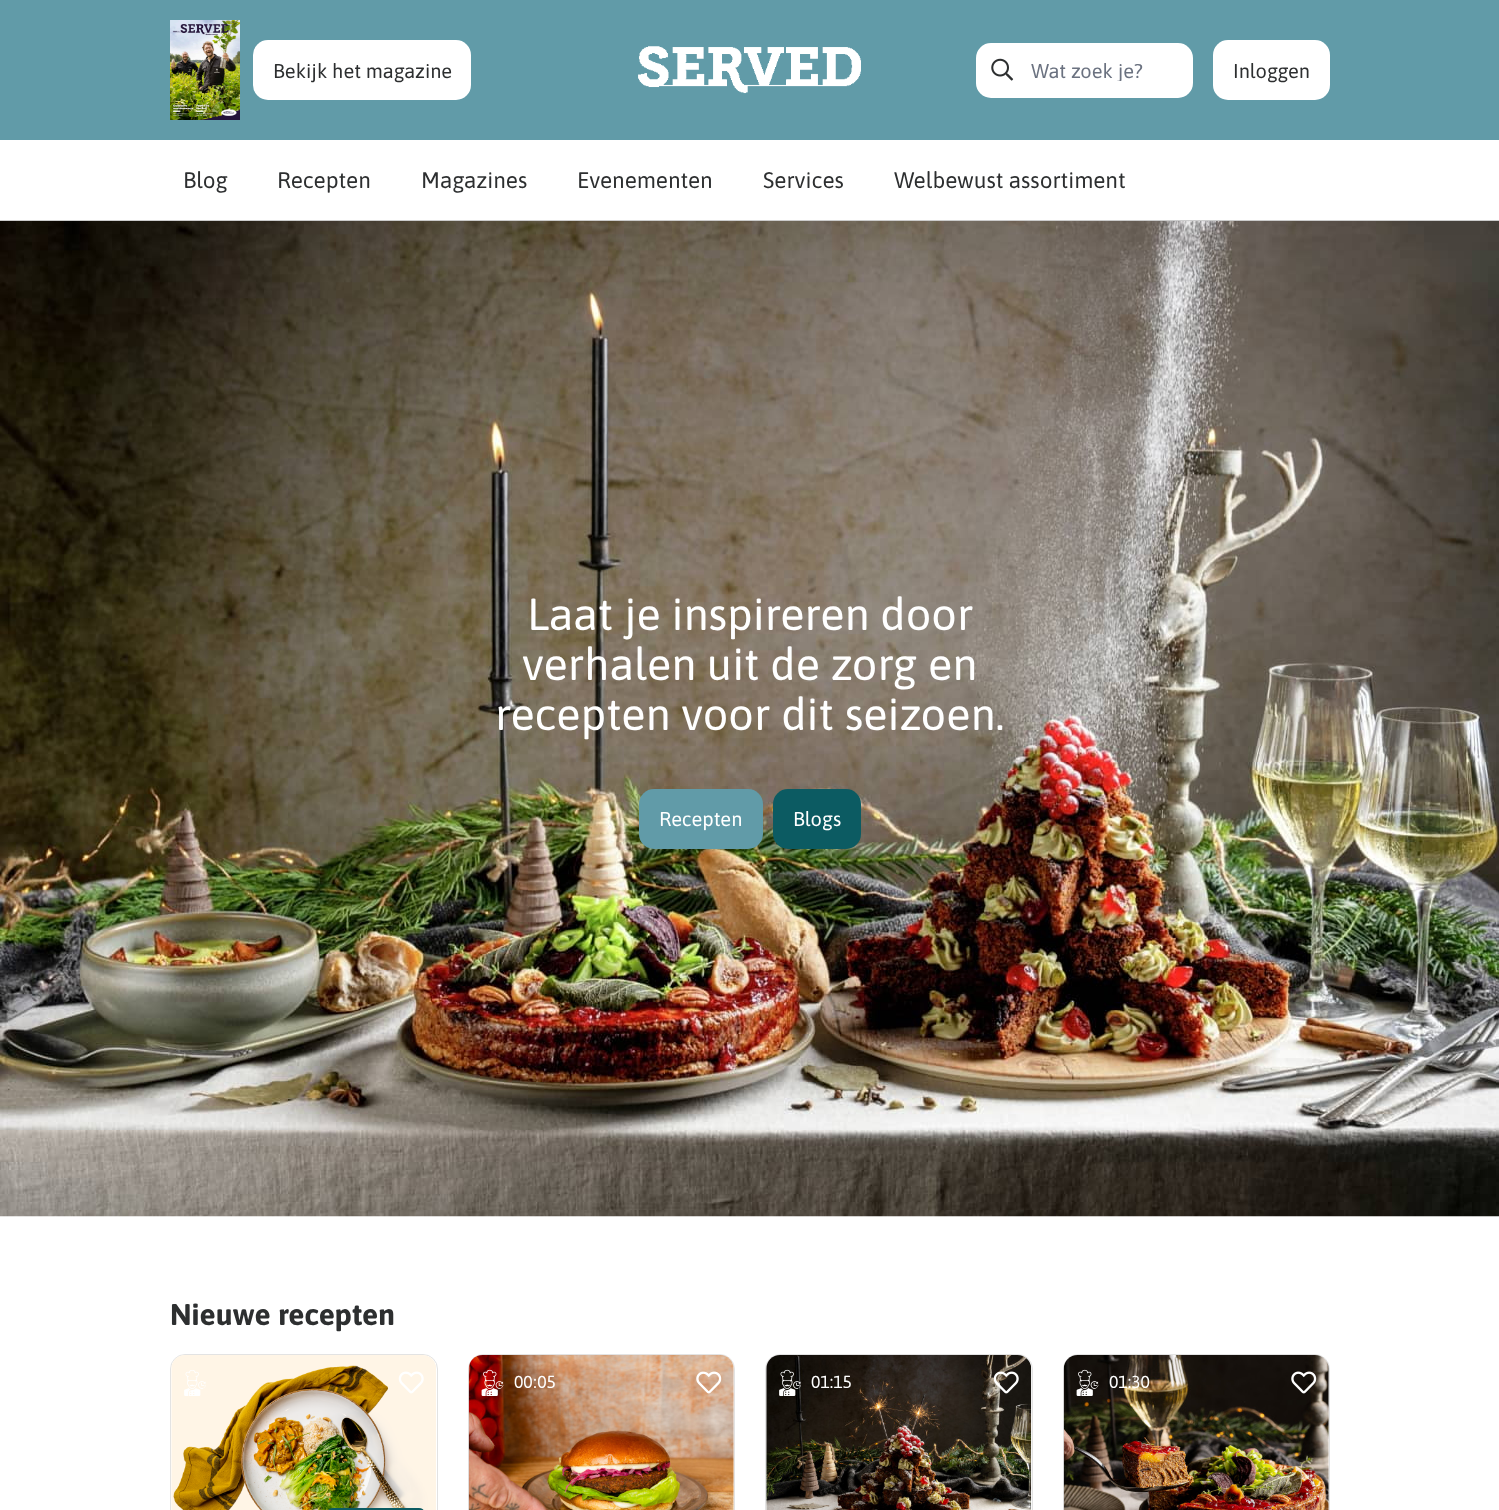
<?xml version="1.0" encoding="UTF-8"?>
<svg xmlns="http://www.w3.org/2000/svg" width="1499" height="1510">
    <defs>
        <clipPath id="clip1"><rect x="1030" y="59" width="116" height="22"/></clipPath>
    </defs>
    <rect width="100%" height="100%" fill="#FFFFFF"/>
    <rect x="0" y="0" width="1499" height="140" fill="#619BA8"/>
    <image x="170" y="20" width="70" height="100" href="img_01.png"/>
    <rect x="253" y="40" width="218" height="60" rx="15" fill="#FFFFFF"/>
    <text x="273" y="78" font-family="Asap" font-size="20" fill="#2D2F30">Bekijk het magazine</text>
    <image x="638" y="46" width="223" height="48" href="img_02.png"/>
    <rect x="976" y="43" width="217" height="55" rx="15" fill="#FFFFFF"/>
    <image x="991" y="58" width="23" height="23" href="img_03.png"/>
    <g clip-path="url(#clip1)">
        <text x="1031" y="78" font-family="Asap" font-size="20" fill="#6B7280">Wat zoek je?</text>
    </g>
    <rect x="1213" y="40" width="117" height="60" rx="15" fill="#FFFFFF"/>
    <text x="1233" y="78" font-family="Asap" font-size="20" fill="#2D2F30">Inloggen</text>
    <rect x="0" y="220" width="1499" height="1" fill="#CCCCCC"/>
    <text x="183" y="188" font-family="Asap" font-size="22.5" fill="#2D2F30">Blog</text>
    <text x="277" y="188" font-family="Asap" font-size="22.5" fill="#2D2F30">Recepten</text>
    <text x="421" y="188" font-family="Asap" font-size="22.5" fill="#2D2F30">Magazines</text>
    <text x="577" y="188" font-family="Asap" font-size="22.5" fill="#2D2F30">Evenementen</text>
    <text x="763" y="188" font-family="Asap" font-size="22.5" fill="#2D2F30">Services</text>
    <text x="894" y="188" font-family="Asap" font-size="22.5" fill="#2D2F30">Welbewust assortiment</text>
    <image x="0" y="221" width="1499" height="996" href="img_04.png"/>
    <text x="527" y="630" font-family="Asap" font-size="45" fill="#FFFFFF">Laat je inspireren door</text>
    <text x="522" y="680" font-family="Asap" font-size="45" fill="#FFFFFF">verhalen uit de zorg en</text>
    <text x="495" y="730" font-family="Asap" font-size="45" fill="#FFFFFF">recepten voor dit seizoen.</text>
    <rect x="639" y="789" width="124" height="60" rx="15" fill="#619BA8"/>
    <text x="659" y="826" font-family="Asap" font-size="20" fill="#FFFFFF">Recepten</text>
    <rect x="773" y="789" width="88" height="60" rx="15" fill="#0C5B62"/>
    <text x="793" y="826" font-family="Asap" font-size="20" fill="#FFFFFF">Blogs</text>
    <text x="170" y="1325" font-family="Asap" font-size="30" font-weight="700" fill="#2D2F30">Nieuwe recepten</text>
    <rect x="170.5" y="1354.5" width="267" height="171" rx="14.5" fill="none" stroke="#E3E3E3"/>
    <image x="171" y="1355" width="265" height="155" href="img_05.png"/>
    <image x="184" y="1370" width="22" height="26" href="img_06.png"/>
    <image x="398" y="1371" width="26" height="23" href="img_07.png"/>
    <rect x="328" y="1508" width="96" height="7" rx="5" fill="#0C5B62"/>
    <rect x="468.5" y="1354.5" width="266" height="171" rx="14.5" fill="none" stroke="#E3E3E3"/>
    <image x="468" y="1355" width="266" height="155" href="img_08.png"/>
    <image x="481" y="1369" width="23" height="27" href="img_09.png"/>
    <text x="514" y="1388" font-family="Asap" font-size="17.5" fill="#FFFFFF">00:05</text>
    <image x="696" y="1371" width="26" height="23" href="img_10.png"/>
    <rect x="765.5" y="1354.5" width="267" height="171" rx="14.5" fill="none" stroke="#E3E3E3"/>
    <image x="766" y="1355" width="266" height="155" href="img_11.png"/>
    <image x="779" y="1369" width="22" height="27" href="img_12.png"/>
    <text x="811" y="1388" font-family="Asap" font-size="17.5" fill="#FFFFFF">01:15</text>
    <image x="993" y="1371" width="26" height="23" href="img_13.png"/>
    <rect x="1063.5" y="1354.5" width="266" height="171" rx="14.5" fill="none" stroke="#E3E3E3"/>
    <image x="1063" y="1355" width="266" height="155" href="img_14.png"/>
    <image x="1076" y="1369" width="23" height="27" href="img_15.png"/>
    <text x="1109" y="1388" font-family="Asap" font-size="17.5" fill="#FFFFFF">01:30</text>
    <image x="1291" y="1371" width="26" height="23" href="img_16.png"/>
</svg>
